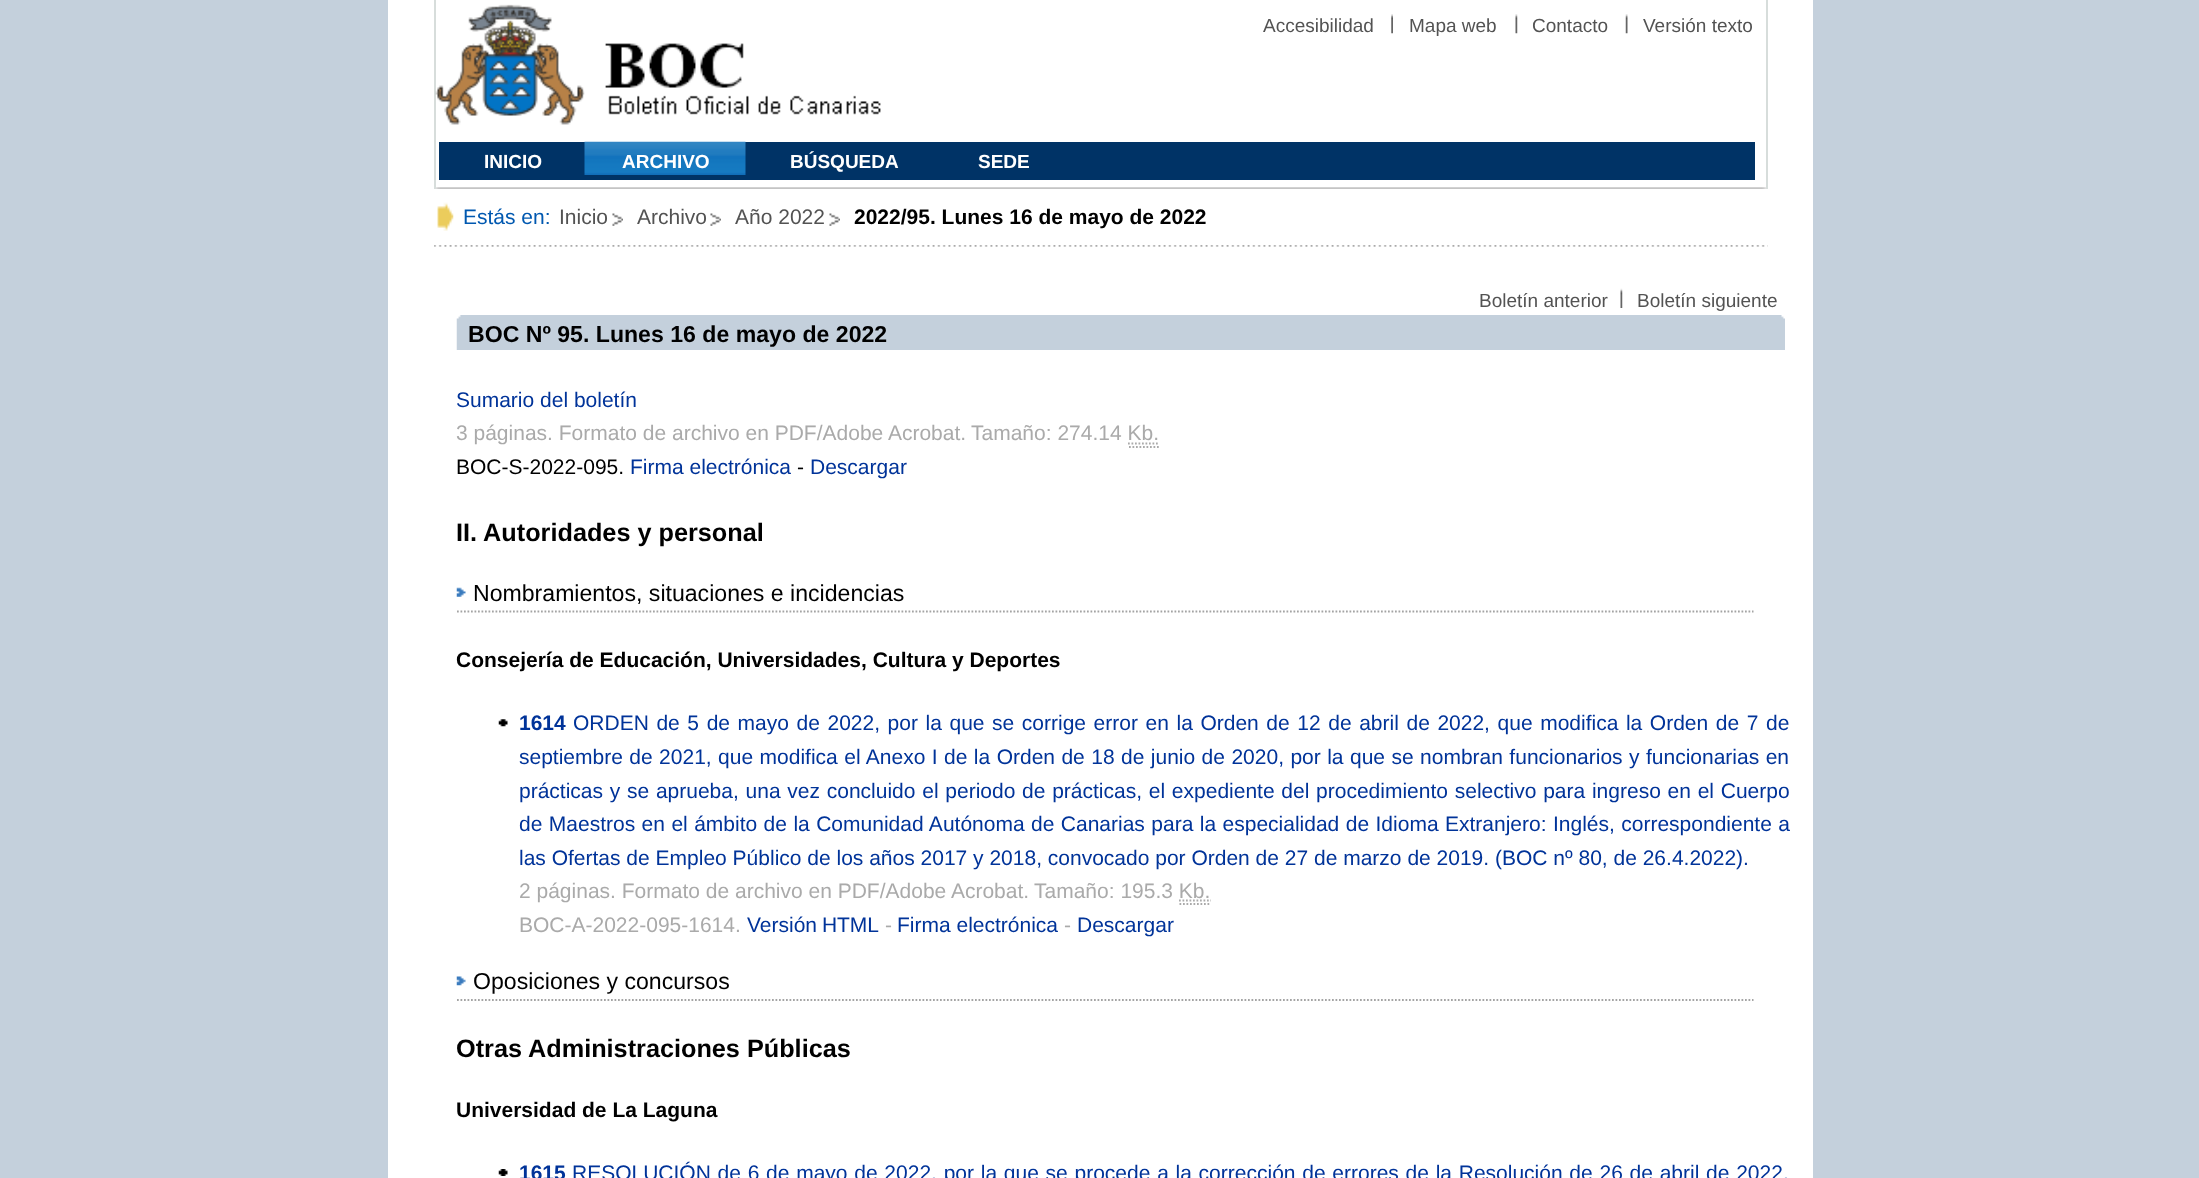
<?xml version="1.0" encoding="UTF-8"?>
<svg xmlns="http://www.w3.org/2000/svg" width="2199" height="1178">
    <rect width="100%" height="100%" fill="#C4D0DC"/>
    <rect x="388" y="0" width="1425" height="1178" fill="#FFFFFF"/>
    <image x="436" y="187" width="1330" height="2" href="img_01.png"/>
    <rect x="1766" y="0" width="2" height="189" fill="#D7DDDB"/>
    <rect x="434" y="0" width="2" height="189" fill="#D7DDDB"/>
    <image x="435" y="4" width="150" height="121" href="img_02.png"/>
    <text x="1263" y="32" font-family="Liberation Sans" font-size="19" fill="#535353">Accesibilidad</text>
    <image x="1391" y="14" width="2" height="20" href="img_03.png"/>
    <text x="1409" y="32" font-family="Liberation Sans" font-size="19" fill="#535353">Mapa web</text>
    <image x="1515" y="14" width="3" height="20" href="img_04.png"/>
    <text x="1532" y="32" font-family="Liberation Sans" font-size="19" fill="#535353">Contacto</text>
    <image x="1625" y="14" width="3" height="20" href="img_05.png"/>
    <text x="1643" y="32" font-family="Liberation Sans" font-size="19" fill="#535353">Versión texto</text>
    <image x="584" y="43" width="297" height="72" href="img_06.png"/>
    <rect x="439" y="142" width="1316" height="38" fill="#003366"/>
    <text x="484" y="168" font-family="Liberation Sans" font-size="19" font-weight="700" fill="#FFFFFF">INICIO</text>
    <image x="584" y="141" width="162" height="34" href="img_07.png"/>
    <text x="622" y="168" font-family="Liberation Sans" font-size="19" font-weight="700" fill="#FFFFFF">ARCHIVO</text>
    <text x="790" y="168" font-family="Liberation Sans" font-size="19" font-weight="700" fill="#FFFFFF">BÚSQUEDA</text>
    <text x="978" y="168" font-family="Liberation Sans" font-size="19" font-weight="700" fill="#FFFFFF">SEDE</text>
    <image x="434" y="245" width="1334" height="2" href="img_08.png"/>
    <image x="437" y="202" width="17" height="29" href="img_09.png"/>
    <text x="463" y="224" font-family="Liberation Sans" font-size="21" fill="#0058B0">Estás en:</text>
    <text x="559" y="224" font-family="Liberation Sans" font-size="21" fill="#535353">Inicio</text>
    <image x="612" y="213" width="11" height="13" href="img_10.png"/>
    <text x="637" y="224" font-family="Liberation Sans" font-size="21" fill="#535353">Archivo</text>
    <image x="710" y="213" width="11" height="13" href="img_10.png"/>
    <text x="735" y="224" font-family="Liberation Sans" font-size="21" fill="#535353">Año 2022</text>
    <image x="829" y="213" width="11" height="13" href="img_10.png"/>
    <text x="854" y="224" font-family="Liberation Sans" font-size="21" font-weight="700" fill="#000000">2022/95. Lunes 16 de mayo de 2022</text>
    <text x="1479" y="307" font-family="Liberation Sans" font-size="19" fill="#535353">Boletín anterior</text>
    <image x="1620" y="288" width="3" height="20" href="img_11.png"/>
    <text x="1637" y="307" font-family="Liberation Sans" font-size="19" fill="#535353">Boletín siguiente</text>
    <image x="456" y="315" width="1329" height="35" href="img_12.png"/>
    <text x="468" y="342" font-family="Liberation Sans" font-size="23.1" font-weight="700" fill="#000000">BOC Nº 95. Lunes 16 de mayo de 2022</text>
    <text x="456" y="407" font-family="Liberation Sans" font-size="21" fill="#003399">Sumario del boletín</text>
    <text x="456" y="440" font-family="Liberation Sans" font-size="21" fill="#AAAAAA">3 páginas. Formato de archivo en PDF/Adobe Acrobat.</text>
    <text x="971" y="440" font-family="Liberation Sans" font-size="21" fill="#AAAAAA">Tamaño: 274.14 Kb.</text>
    <path d="M 1129 447 H 1160 M 1128 443.5 H 1159.5" fill="none" stroke="#AAAAAA" stroke-width="1.8" stroke-dasharray="1.75 1.75"/>
    <text x="456" y="474" font-family="Liberation Sans" font-size="21" fill="#000000">BOC-S-2022-095.</text>
    <text x="630" y="474" font-family="Liberation Sans" font-size="21" fill="#003399">Firma electrónica</text>
    <text x="797" y="474" font-family="Liberation Sans" font-size="21" fill="#000000">-</text>
    <text x="810" y="474" font-family="Liberation Sans" font-size="21" fill="#003399">Descargar</text>
    <text x="456" y="541" font-family="Liberation Sans" font-size="25.25" font-weight="700" fill="#000000">II. Autoridades y personal</text>
    <image x="456" y="587" width="10" height="10" href="img_13.png"/>
    <path d="M 457 611.5 H 1753.5" fill="none" stroke="#A4A4A4" stroke-width="1.8" stroke-dasharray="1.75 1.75"/>
    <text x="473" y="601" font-family="Liberation Sans" font-size="23.1" fill="#000000">Nombramientos, situaciones e incidencias</text>
    <text x="456" y="667" font-family="Liberation Sans" font-size="21" font-weight="700" fill="#000000">Consejería de Educación, Universidades, Cultura y Deportes</text>
    <image x="498" y="719" width="10" height="8" href="img_14.png"/>
    <text x="519" y="730" font-family="Liberation Sans" font-size="21" font-weight="700" fill="#003399">1614</text>
    <text x="573" y="730" word-spacing="1.75" font-family="Liberation Sans" font-size="21" fill="#003399">ORDEN de 5 de mayo de 2022, por la que se corrige error en la Orden de 12 de abril de 2022, que modifica la Orden de 7 de</text>
    <text font-family="Liberation Sans" font-size="21" fill="#003399">
        <tspan x="519" y="764" word-spacing="0.6">septiembre de 2021, que modifica el Anexo I de la Orden de 18 de junio de 2020, por la que se nombran funcionarios y funcionarias en</tspan>
        <tspan x="519" y="798" word-spacing="0.9">prácticas y se aprueba, una vez concluido el periodo de prácticas, el expediente del procedimiento selectivo para ingreso en el Cuerpo</tspan>
        <tspan x="519" y="831" word-spacing="0.6">de Maestros en el ámbito de la Comunidad Autónoma de Canarias para la especialidad de Idioma Extranjero: Inglés, correspondiente a</tspan>
        <tspan x="519" y="865">las Ofertas de Empleo Público de los años 2017 y 2018, convocado por Orden de 27 de marzo de 2019. (BOC nº 80, de 26.4.2022).</tspan>
    </text>
    <text x="519" y="898" font-family="Liberation Sans" font-size="21" fill="#AAAAAA">2 páginas. Formato de archivo en PDF/Adobe Acrobat.</text>
    <text x="1034" y="898" font-family="Liberation Sans" font-size="21" fill="#AAAAAA">Tamaño: 195.3 Kb.</text>
    <path d="M 1179.5 904 H 1211 M 1179 900.5 H 1211" fill="none" stroke="#AAAAAA" stroke-width="1.8" stroke-dasharray="1.75 1.75"/>
    <text x="519" y="932" font-family="Liberation Sans" font-size="21" fill="#AAAAAA">BOC-A-2022-095-1614.</text>
    <text x="747" y="932" word-spacing="-1" font-family="Liberation Sans" font-size="21" fill="#003399">Versión HTML</text>
    <text x="885" y="932" font-family="Liberation Sans" font-size="21" fill="#AAAAAA">-</text>
    <text x="897" y="932" font-family="Liberation Sans" font-size="21" fill="#003399">Firma electrónica</text>
    <text x="1064" y="932" font-family="Liberation Sans" font-size="21" fill="#AAAAAA">-</text>
    <text x="1077" y="932" font-family="Liberation Sans" font-size="21" fill="#003399">Descargar</text>
    <image x="456" y="976" width="10" height="10" href="img_15.png"/>
    <path d="M 457 1000 H 1753.5" fill="none" stroke="#A4A4A4" stroke-width="1.8" stroke-dasharray="1.75 1.75"/>
    <text x="473" y="989" font-family="Liberation Sans" font-size="23.1" fill="#000000">Oposiciones y concursos</text>
    <text x="456" y="1057" font-family="Liberation Sans" font-size="25.25" font-weight="700" fill="#000000">Otras Administraciones Públicas</text>
    <text x="456" y="1117" font-family="Liberation Sans" font-size="21" font-weight="700" fill="#000000">Universidad de La Laguna</text>
    <image x="498" y="1169" width="10" height="7" href="img_16.png"/>
    <text x="519" y="1180" font-family="Liberation Sans" font-size="21" font-weight="700" fill="#003399">1615</text>
    <text x="572" y="1180" word-spacing="0.9" font-family="Liberation Sans" font-size="21" fill="#003399">RESOLUCIÓN de 6 de mayo de 2022, por la que se procede a la corrección de errores de la Resolución de 26 de abril de 2022,</text>
</svg>
